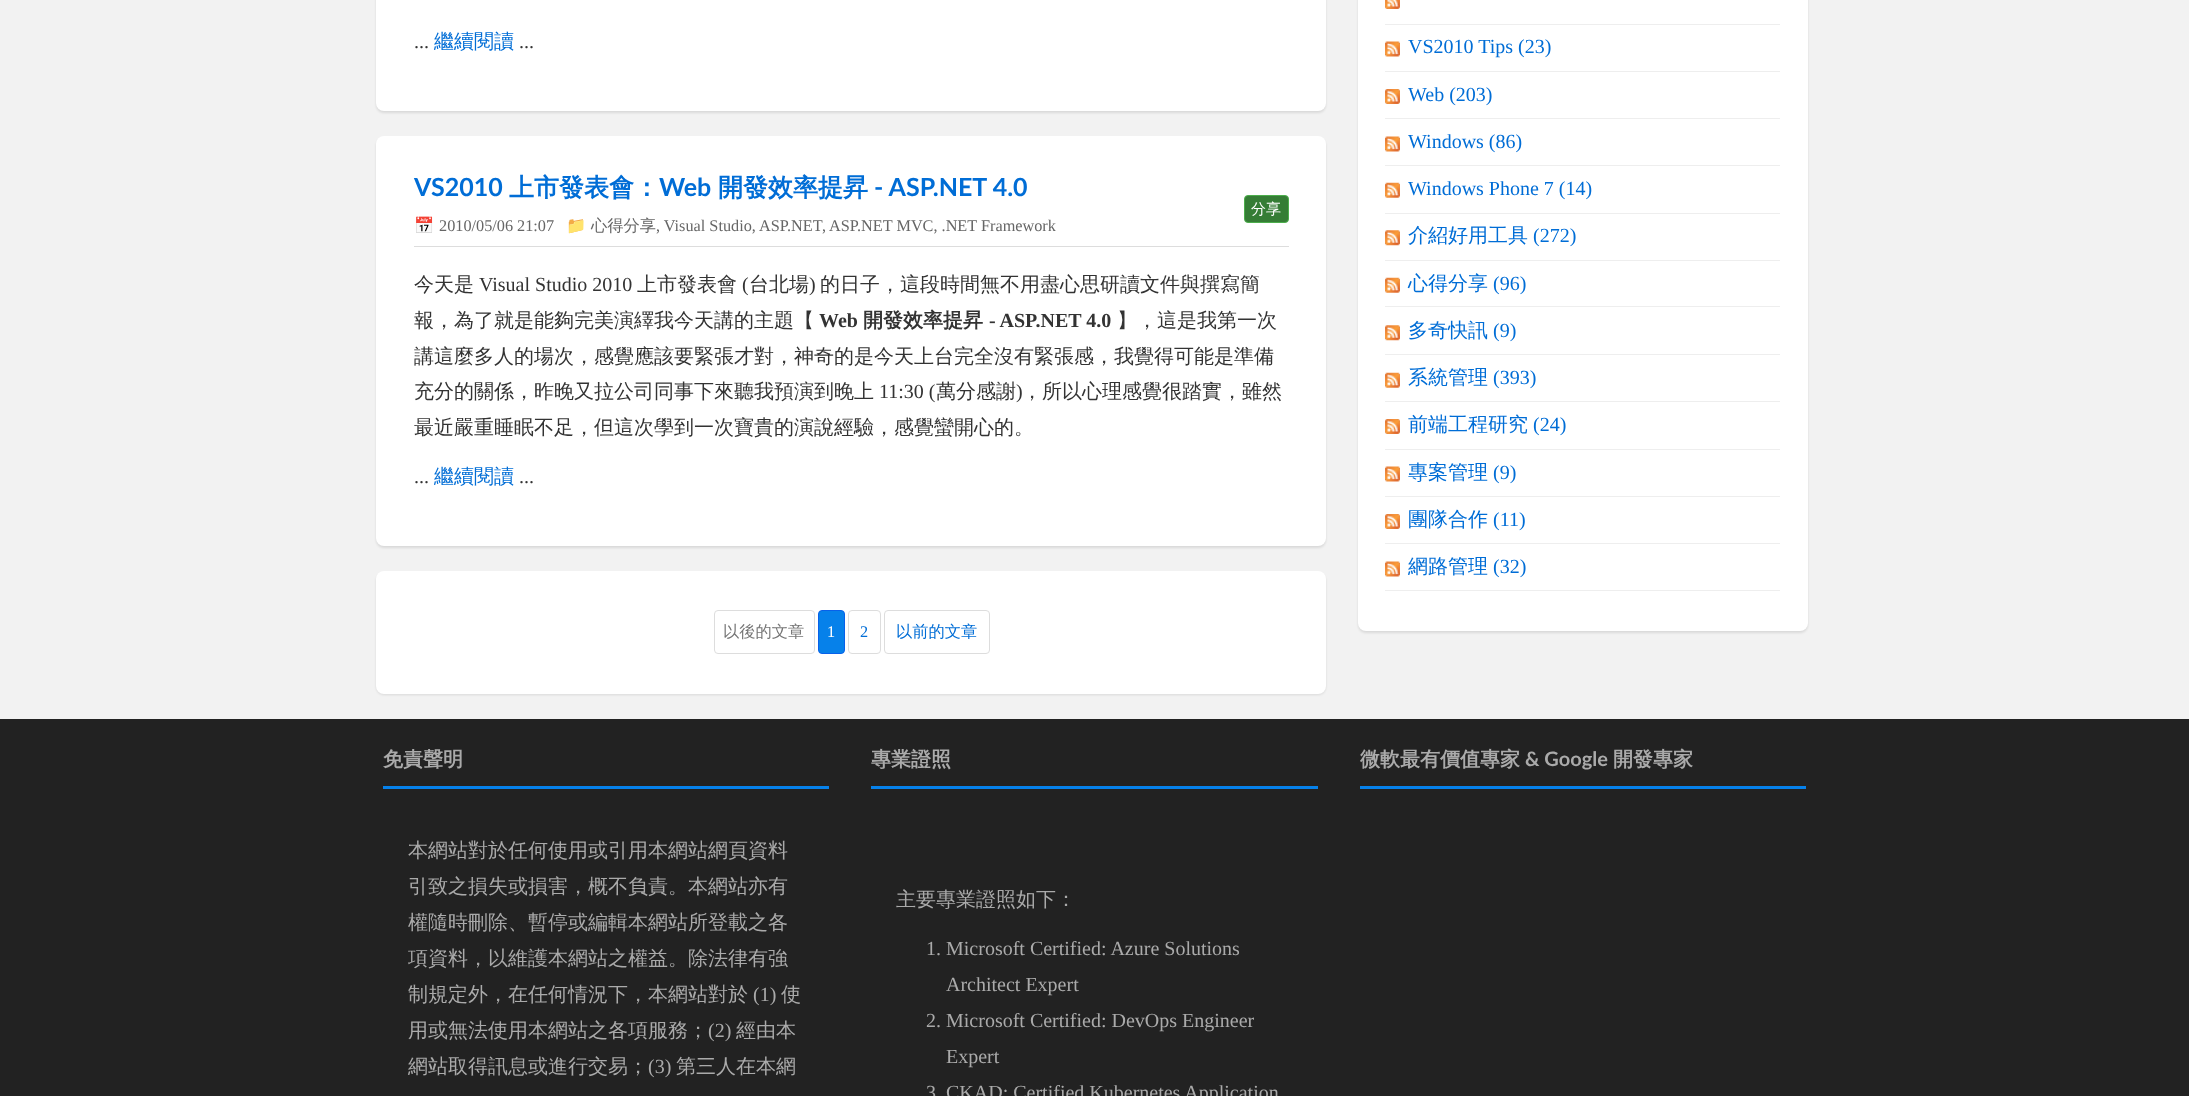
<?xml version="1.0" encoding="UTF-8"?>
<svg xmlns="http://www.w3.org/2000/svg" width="2189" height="1096">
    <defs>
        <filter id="blur1" x="-50%" y="-200%" width="200%" height="500%"><feGaussianBlur stdDeviation="1"/></filter>
    </defs>
    <rect width="100%" height="100%" fill="#F2F2F2"/>
    <rect x="376" y="-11" width="950" height="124" rx="8" fill="#000000" fill-opacity="0.1" filter="url(#blur1)"/>
    <rect x="376" y="-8" width="950" height="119" rx="8" fill="#FFFFFF"/>
    <text x="414" y="48" font-family="Liberation Serif" font-size="20" fill="#333333">...</text>
    <text x="434" y="48" font-family="WenQuanYi Zen Hei" font-size="20" font-weight="500" fill="#006DD6">繼續閱讀</text>
    <text x="519" y="48" font-family="Liberation Serif" font-size="20" fill="#333333">...</text>
    <rect x="376" y="138" width="950" height="410" rx="8" fill="#000000" fill-opacity="0.1" filter="url(#blur1)"/>
    <rect x="376" y="136" width="950" height="410" rx="8" fill="#FFFFFF"/>
    <rect x="414" y="246" width="875" height="1" fill="#DDDDDD"/>
    <text x="414" y="196" font-family="Lato" font-size="25" font-weight="700" fill="#006DD6">VS2010</text>
    <text x="509" y="196" font-family="WenQuanYi Zen Hei" font-size="25" font-weight="700" fill="#006DD6">上市發表會：</text>
    <text x="659" y="196" font-family="Lato" font-size="25" font-weight="700" fill="#006DD6">Web</text>
    <text x="718" y="196" font-family="WenQuanYi Zen Hei" font-size="25" font-weight="700" fill="#006DD6">開發效率提昇</text>
    <text x="874" y="196" font-family="Lato" font-size="25" font-weight="700" fill="#006DD6">- ASP.NET 4.0</text>
    <rect x="1244.5" y="195.5" width="44" height="27" rx="3.5" fill="#357D35" stroke="#4CAE4C"/>
    <text x="1251" y="214" font-family="WenQuanYi Zen Hei" font-size="15" font-weight="500" fill="#FFFFFF">分享</text>
    <text x="414" y="231" font-family="Noto Color Emoji" font-size="16.25" fill="#666666">📅</text>
    <text x="439" y="231" font-family="Liberation Serif" font-size="16.25" fill="#666666">2010/05/06 21:07</text>
    <text x="566" y="231" font-family="Noto Color Emoji" font-size="16.25" fill="#666666">📁</text>
    <text x="591" y="231" font-family="WenQuanYi Zen Hei" font-size="16.25" font-weight="500" fill="#666666">心得分享</text>
    <text x="656" y="231" font-family="Liberation Serif" font-size="16.25" fill="#666666">, Visual Studio,</text>
    <text x="759" y="231" font-family="Liberation Serif" font-size="16.25" fill="#666666">ASP.NET</text>
    <text x="822" y="231" font-family="Liberation Serif" font-size="16.25" fill="#666666">,</text>
    <text x="829" y="231" font-family="Liberation Serif" font-size="16.25" fill="#666666">ASP.NET MVC, .NET Framework</text>
    <text x="414" y="291" font-family="WenQuanYi Zen Hei" font-size="20" font-weight="500" fill="#333333">今天是</text>
    <text x="479" y="291" font-family="Liberation Serif" font-size="20" fill="#333333">Visual Studio 2010</text>
    <text x="637" y="291" font-family="WenQuanYi Zen Hei" font-size="20" font-weight="500" fill="#333333">上市發表會</text>
    <text x="742" y="291" font-family="Liberation Serif" font-size="20" fill="#333333">(</text>
    <text x="749" y="291" font-family="WenQuanYi Zen Hei" font-size="20" font-weight="500" fill="#333333">台北場</text>
    <text x="809" y="291" font-family="Liberation Serif" font-size="20" fill="#333333">)</text>
    <text x="820" y="291" font-family="WenQuanYi Zen Hei" font-size="20" font-weight="500" fill="#333333">的日子，這段時間無不用盡心思研讀文件與撰寫簡</text>
    <text x="414" y="327" font-family="WenQuanYi Zen Hei" font-size="20" font-weight="500" fill="#333333">報，為了就是能夠完美演繹我今天講的主題【</text>
    <text x="819" y="327" font-family="Liberation Serif" font-size="20" font-weight="700" fill="#333333">Web</text>
    <text x="863" y="327" font-family="WenQuanYi Zen Hei" font-size="20" font-weight="700" fill="#333333">開發效率提昇</text>
    <text x="989" y="327" font-family="Liberation Serif" font-size="20" font-weight="700" fill="#333333">- ASP.NET 4.0</text>
    <text x="1117" y="327" font-family="WenQuanYi Zen Hei" font-size="20" font-weight="500" fill="#333333">】，這是我第一次</text>
    <text font-family="WenQuanYi Zen Hei" font-size="20" font-weight="500" fill="#333333">
        <tspan x="414" y="363">講這麼多人的場次，感覺應該要緊張才對，神奇的是今天上台完全沒有緊張感，我覺得可能是準備</tspan>
        <tspan x="414" y="398">充分的關係，昨晚又拉公司同事下來聽我預演到晚上</tspan>
    </text>
    <text x="879" y="398" font-family="Liberation Serif" font-size="20" fill="#333333">11:30 (</text>
    <text x="936" y="398" font-family="WenQuanYi Zen Hei" font-size="20" font-weight="500" fill="#333333">萬分感謝</text>
    <text x="1016" y="398" font-family="Liberation Serif" font-size="20" fill="#333333">)</text>
    <text x="1022" y="398" font-family="WenQuanYi Zen Hei" font-size="20" font-weight="500" fill="#333333">，所以心理感覺很踏實，雖然</text>
    <text x="414" y="434" font-family="WenQuanYi Zen Hei" font-size="20" font-weight="500" fill="#333333">最近嚴重睡眠不足，但這次學到一次寶貴的演說經驗，感覺蠻開心的。</text>
    <text x="414" y="483" font-family="Liberation Serif" font-size="20" fill="#333333">...</text>
    <text x="434" y="483" font-family="WenQuanYi Zen Hei" font-size="20" font-weight="500" fill="#006DD6">繼續閱讀</text>
    <text x="519" y="483" font-family="Liberation Serif" font-size="20" fill="#333333">...</text>
    <rect x="376" y="573" width="950" height="122" rx="8" fill="#000000" fill-opacity="0.1" filter="url(#blur1)"/>
    <rect x="376" y="571" width="950" height="123" rx="8" fill="#FFFFFF"/>
    <rect x="714.5" y="610.5" width="100" height="43" rx="3.5" fill="none" stroke="#DDDDDD"/>
    <text x="723" y="637" font-family="WenQuanYi Zen Hei" font-size="16.25" font-weight="500" fill="#757575">以後的文章</text>
    <rect x="818.5" y="610.5" width="26" height="43" rx="3.5" fill="#0681EA" stroke="#0861EA"/>
    <text x="827" y="637" font-family="Liberation Serif" font-size="16.25" fill="#FFFFFF">1</text>
    <rect x="848.5" y="610.5" width="32" height="43" rx="3.5" fill="none" stroke="#DDDDDD"/>
    <text x="860" y="637" font-family="Liberation Serif" font-size="16.25" fill="#006DD6">2</text>
    <rect x="884.5" y="610.5" width="105" height="43" rx="3.5" fill="none" stroke="#DDDDDD"/>
    <text x="896" y="637" font-family="WenQuanYi Zen Hei" font-size="16.25" font-weight="500" fill="#006DD6">以前的文章</text>
    <rect x="1358" y="-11" width="450" height="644" rx="8" fill="#000000" fill-opacity="0.1" filter="url(#blur1)"/>
    <rect x="1358" y="-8" width="450" height="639" rx="8" fill="#FFFFFF"/>
    <rect x="1385" y="24" width="395" height="1" fill="#EEEEEE"/>
    <image x="1385" y="0" width="15" height="9" href="img_01.png"/>
    <rect x="1385" y="71" width="395" height="1" fill="#EEEEEE"/>
    <image x="1385" y="41" width="15" height="16" href="img_02.png"/>
    <text x="1408" y="53" font-family="Liberation Serif" font-size="20" fill="#006DD6">VS2010 Tips (23)</text>
    <rect x="1385" y="118" width="395" height="1" fill="#EEEEEE"/>
    <image x="1385" y="89" width="15" height="15" href="img_03.png"/>
    <text x="1408" y="101" font-family="Liberation Serif" font-size="20" fill="#006DD6">Web (203)</text>
    <rect x="1385" y="165" width="395" height="1" fill="#EEEEEE"/>
    <image x="1385" y="136" width="15" height="16" href="img_02.png"/>
    <text x="1408" y="148" font-family="Liberation Serif" font-size="20" fill="#006DD6">Windows (86)</text>
    <rect x="1385" y="213" width="395" height="1" fill="#EEEEEE"/>
    <image x="1385" y="182" width="15" height="16" href="img_04.png"/>
    <text x="1408" y="195" font-family="Liberation Serif" font-size="20" fill="#006DD6">Windows Phone 7 (14)</text>
    <rect x="1385" y="260" width="395" height="1" fill="#EEEEEE"/>
    <image x="1385" y="230" width="15" height="16" href="img_05.png"/>
    <text x="1408" y="242" font-family="WenQuanYi Zen Hei" font-size="20" font-weight="500" fill="#006DD6">介紹好用工具</text>
    <text x="1533" y="242" font-family="Liberation Serif" font-size="20" fill="#006DD6">(272)</text>
    <rect x="1385" y="306" width="395" height="1" fill="#EEEEEE"/>
    <image x="1385" y="277" width="15" height="16" href="img_04.png"/>
    <text x="1408" y="290" font-family="WenQuanYi Zen Hei" font-size="20" font-weight="500" fill="#006DD6">心得分享</text>
    <text x="1493" y="290" font-family="Liberation Serif" font-size="20" fill="#006DD6">(96)</text>
    <rect x="1385" y="354" width="395" height="1" fill="#EEEEEE"/>
    <image x="1385" y="325" width="15" height="16" href="img_06.png"/>
    <text x="1408" y="337" font-family="WenQuanYi Zen Hei" font-size="20" font-weight="500" fill="#006DD6">多奇快訊</text>
    <text x="1493" y="337" font-family="Liberation Serif" font-size="20" fill="#006DD6">(9)</text>
    <rect x="1385" y="401" width="395" height="1" fill="#EEEEEE"/>
    <image x="1385" y="372" width="15" height="16" href="img_04.png"/>
    <text x="1408" y="384" font-family="WenQuanYi Zen Hei" font-size="20" font-weight="500" fill="#006DD6">系統管理</text>
    <text x="1493" y="384" font-family="Liberation Serif" font-size="20" fill="#006DD6">(393)</text>
    <rect x="1385" y="449" width="395" height="1" fill="#EEEEEE"/>
    <image x="1385" y="419" width="15" height="15" href="img_03.png"/>
    <text x="1408" y="431" font-family="WenQuanYi Zen Hei" font-size="20" font-weight="500" fill="#006DD6">前端工程研究</text>
    <text x="1533" y="431" font-family="Liberation Serif" font-size="20" fill="#006DD6">(24)</text>
    <rect x="1385" y="496" width="395" height="1" fill="#EEEEEE"/>
    <image x="1385" y="466" width="15" height="16" href="img_02.png"/>
    <text x="1408" y="479" font-family="WenQuanYi Zen Hei" font-size="20" font-weight="500" fill="#006DD6">專案管理</text>
    <text x="1493" y="479" font-family="Liberation Serif" font-size="20" fill="#006DD6">(9)</text>
    <rect x="1385" y="543" width="395" height="1" fill="#EEEEEE"/>
    <image x="1385" y="514" width="15" height="15" href="img_03.png"/>
    <text x="1408" y="526" font-family="WenQuanYi Zen Hei" font-size="20" font-weight="500" fill="#006DD6">團隊合作</text>
    <text x="1493" y="526" font-family="Liberation Serif" font-size="20" fill="#006DD6">(11)</text>
    <rect x="1385" y="590" width="395" height="1" fill="#EEEEEE"/>
    <image x="1385" y="561" width="15" height="16" href="img_02.png"/>
    <text x="1408" y="573" font-family="WenQuanYi Zen Hei" font-size="20" font-weight="500" fill="#006DD6">網路管理</text>
    <text x="1493" y="573" font-family="Liberation Serif" font-size="20" fill="#006DD6">(32)</text>
    <rect x="0" y="719" width="2189" height="377" fill="#222222"/>
    <rect x="383" y="786" width="446" height="3" fill="#0681EA"/>
    <text x="383" y="766" font-family="WenQuanYi Zen Hei" font-size="20" font-weight="700" fill="#AAAAAA">免責聲明</text>
    <text font-family="WenQuanYi Zen Hei" font-size="20" font-weight="500" fill="#AAAAAA">
        <tspan x="408" y="857">本網站對於任何使用或引用本網站網頁資料</tspan>
        <tspan x="408" y="893">引致之損失或損害，概不負責。本網站亦有</tspan>
        <tspan x="408" y="929">權隨時刪除、暫停或編輯本網站所登載之各</tspan>
        <tspan x="408" y="965">項資料，以維護本網站之權益。除法律有強</tspan>
        <tspan x="408" y="1001">制規定外，在任何情況下，本網站對於</tspan>
    </text>
    <text x="753" y="1001" font-family="Liberation Serif" font-size="20" fill="#AAAAAA">(1)</text>
    <text x="781" y="1001" font-family="WenQuanYi Zen Hei" font-size="20" font-weight="500" fill="#AAAAAA">使</text>
    <text x="408" y="1037" font-family="WenQuanYi Zen Hei" font-size="20" font-weight="500" fill="#AAAAAA">用或無法使用本網站之各項服務；</text>
    <text x="708" y="1037" font-family="Liberation Serif" font-size="20" fill="#AAAAAA">(2)</text>
    <text x="736" y="1037" font-family="WenQuanYi Zen Hei" font-size="20" font-weight="500" fill="#AAAAAA">經由本</text>
    <text x="408" y="1073" font-family="WenQuanYi Zen Hei" font-size="20" font-weight="500" fill="#AAAAAA">網站取得訊息或進行交易；</text>
    <text x="648" y="1073" font-family="Liberation Serif" font-size="20" fill="#AAAAAA">(3)</text>
    <text x="676" y="1073" font-family="WenQuanYi Zen Hei" font-size="20" font-weight="500" fill="#AAAAAA">第三人在本網</text>
    <rect x="871" y="786" width="447" height="3" fill="#0681EA"/>
    <text x="871" y="766" font-family="WenQuanYi Zen Hei" font-size="20" font-weight="700" fill="#AAAAAA">專業證照</text>
    <text x="896" y="906" font-family="WenQuanYi Zen Hei" font-size="20" font-weight="500" fill="#AAAAAA">主要專業證照如下：</text>
    <text x="926" y="955" font-family="Liberation Serif" font-size="20" fill="#AAAAAA">1. Microsoft Certified: Azure Solutions</text>
    <text x="946" y="991" font-family="Liberation Serif" font-size="20" fill="#AAAAAA">Architect Expert</text>
    <text x="926" y="1027" font-family="Liberation Serif" font-size="20" fill="#AAAAAA">2. Microsoft Certified: DevOps Engineer</text>
    <text x="946" y="1063" font-family="Liberation Serif" font-size="20" fill="#AAAAAA">Expert</text>
    <text x="926" y="1099" font-family="Liberation Serif" font-size="20" fill="#AAAAAA">3</text>
    <text x="946" y="1099" font-family="Liberation Serif" font-size="20" fill="#AAAAAA">CKAD: Certified Kubernetes Application</text>
    <rect x="1360" y="786" width="446" height="3" fill="#0681EA"/>
    <text x="1360" y="766" font-family="WenQuanYi Zen Hei" font-size="20" font-weight="700" fill="#AAAAAA">微軟最有價值專家</text>
    <text x="1525" y="766" font-family="Lato" font-size="20" font-weight="700" fill="#AAAAAA">&amp; Google</text>
    <text x="1613" y="766" font-family="WenQuanYi Zen Hei" font-size="20" font-weight="700" fill="#AAAAAA">開發專家</text>
</svg>
